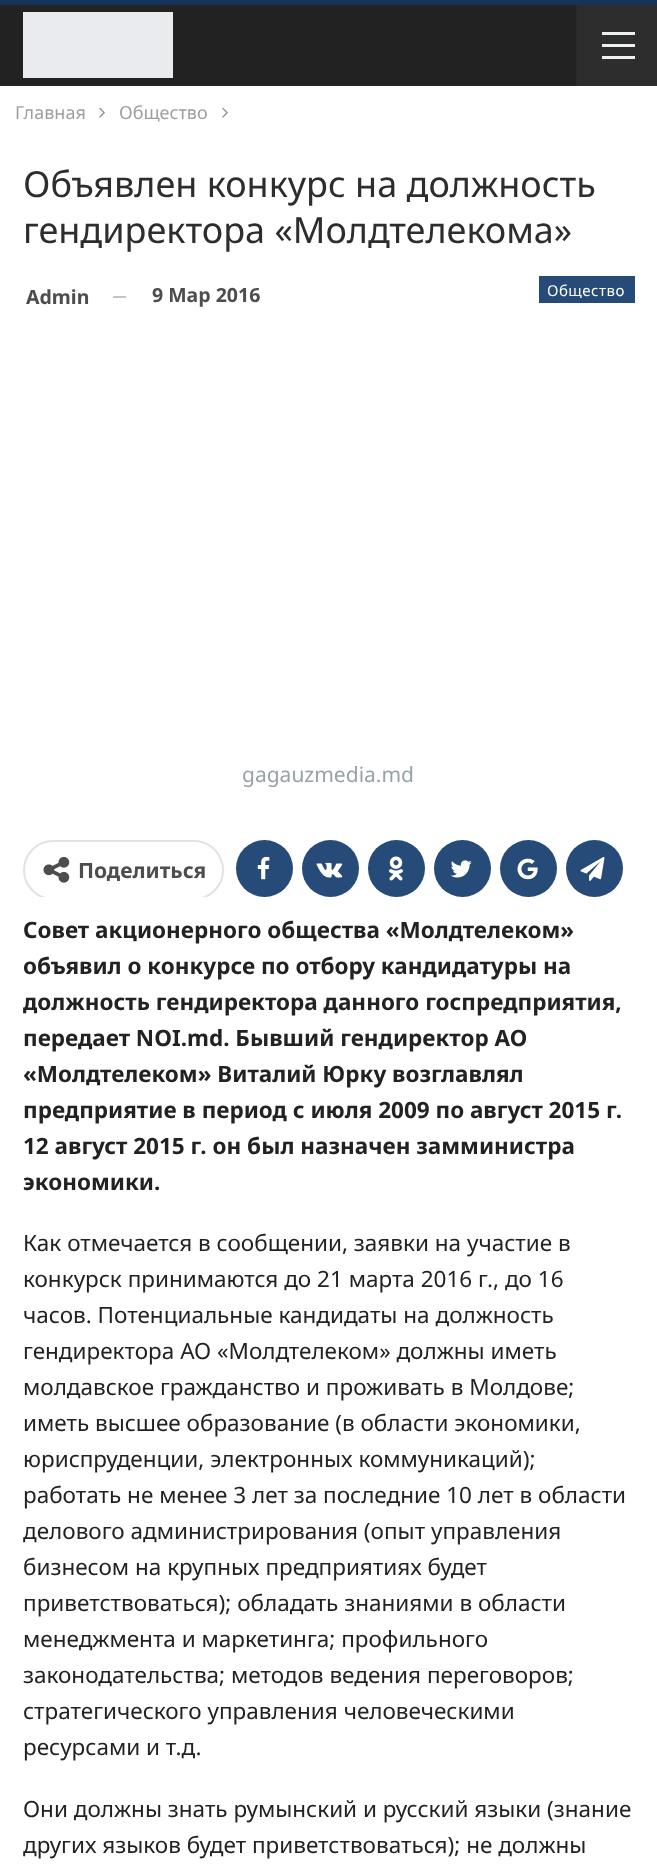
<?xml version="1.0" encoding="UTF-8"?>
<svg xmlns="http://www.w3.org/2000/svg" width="657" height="1873">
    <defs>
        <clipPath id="clip1"><rect x="23" y="840" width="612" height="57"/></clipPath>
    </defs>
    <rect width="100%" height="100%" fill="#15345C"/>
    <rect x="0" y="5" width="576" height="81" fill="#222222"/>
    <rect x="23" y="12" width="150" height="66" fill="#E9EBEE"/>
    <rect x="578" y="5" width="79" height="81" fill="#2D2D2D"/>
    <rect x="576" y="5" width="2" height="81" fill="#2A2A2A"/>
    <rect x="602" y="44" width="33" height="3" fill="#ECF0F1"/>
    <rect x="602" y="32" width="33" height="3" fill="#ECF0F1"/>
    <rect x="602" y="56" width="33" height="3" fill="#ECF0F1"/>
    <rect x="0" y="86" width="657" height="1787" fill="#FFFFFF"/>
    <text x="15" y="119" font-family="Noto Sans" font-size="18" fill="#9E9E9E">Главная</text>
    <image x="99" y="107" width="6" height="11" href="img_01.png"/>
    <text x="119" y="119" font-family="Noto Sans" font-size="18" fill="#9E9E9E">Общество</text>
    <image x="222" y="107" width="6" height="11" href="img_01.png"/>
    <text font-family="Noto Sans" font-size="36" fill="#2D2D2D">
        <tspan x="23" y="197">Объявлен конкурс на должность</tspan>
        <tspan x="23" y="243">гендиректора «Молдтелекома»</tspan>
    </text>
    <text x="26" y="304" font-family="Noto Sans" font-size="19.5" font-weight="700" fill="#4D4D4D">Admin</text>
    <rect x="113" y="296" width="13" height="2" fill="#C4C4C4"/>
    <text x="152" y="302" font-family="Noto Sans" font-size="19.5" font-weight="700" fill="#4D4D4D">9 Мар 2016</text>
    <rect x="539" y="276" width="96" height="27" fill="#274B79"/>
    <text x="547" y="296" font-family="Noto Sans" font-size="15" letter-spacing="0.5" fill="#FFFFFF">Общество</text>
    <text x="242" y="782" font-family="Noto Sans" font-size="21" fill="#95A3A9">gagauzmedia.md</text>
    <g clip-path="url(#clip1)">
        <rect x="24" y="841" width="199" height="58" rx="29" fill="none" stroke="#E2E2E2" stroke-width="2"/>
    </g>
    <image x="43" y="856" width="27" height="27" href="img_02.png"/>
    <text x="78" y="878" font-family="Noto Sans" font-size="21" font-weight="700" fill="#4D4D4D">Поделиться</text>
    <circle cx="264.5" cy="868.5" r="28.5" fill="#274B79"/>
    <image x="257" y="856" width="13" height="24" href="img_03.png"/>
    <circle cx="330.5" cy="868.5" r="28.5" fill="#274B79"/>
    <image x="316" y="862" width="27" height="16" href="img_04.png"/>
    <circle cx="396.5" cy="868.5" r="28.5" fill="#274B79"/>
    <image x="389" y="856" width="14" height="25" href="img_05.png"/>
    <circle cx="462.5" cy="868.5" r="28.5" fill="#274B79"/>
    <image x="450" y="860" width="22" height="18" href="img_06.png"/>
    <circle cx="528.5" cy="868.5" r="28.5" fill="#274B79"/>
    <image x="517" y="858" width="21" height="22" href="img_07.png"/>
    <circle cx="594.5" cy="868.5" r="28.5" fill="#274B79"/>
    <image x="580" y="857" width="25" height="24" href="img_08.png"/>
    <text font-family="Noto Sans" font-size="22.5" font-weight="700" fill="#222222">
        <tspan x="23" y="938">Совет акционерного общества «Молдтелеком»</tspan>
        <tspan x="23" y="974">объявил о конкурсе по отбору кандидатуры на</tspan>
        <tspan x="23" y="1010">должность гендиректора данного госпредприятия,</tspan>
        <tspan x="23" y="1046">передает NOI.md. Бывший гендиректор АО</tspan>
        <tspan x="23" y="1082">«Молдтелеком» Виталий Юрку возглавлял</tspan>
        <tspan x="23" y="1118">предприятие в период с июля 2009 по август 2015 г.</tspan>
        <tspan x="23" y="1154">12 август 2015 г. он был назначен замминистра</tspan>
        <tspan x="23" y="1190">экономики.</tspan>
    </text>
    <text font-family="Noto Sans" font-size="22.5" fill="#222222">
        <tspan x="23" y="1251">Как отмечается в сообщении, заявки на участие в</tspan>
        <tspan x="23" y="1287">конкурск принимаются до 21 марта 2016 г., до 16</tspan>
        <tspan x="23" y="1323">часов. Потенциальные кандидаты на должность</tspan>
        <tspan x="23" y="1359">гендиректора АО «Молдтелеком» должны иметь</tspan>
        <tspan x="23" y="1395">молдавское гражданство и проживать в Молдове;</tspan>
        <tspan x="23" y="1431">иметь высшее образование (в области экономики,</tspan>
        <tspan x="23" y="1467">юриспруденции, электронных коммуникаций);</tspan>
        <tspan x="23" y="1503">работать не менее 3 лет за последние 10 лет в области</tspan>
        <tspan x="23" y="1539">делового администрирования (опыт управления</tspan>
        <tspan x="23" y="1575">бизнесом на крупных предприятиях будет</tspan>
        <tspan x="23" y="1611">приветствоваться); обладать знаниями в области</tspan>
        <tspan x="23" y="1647">менеджмента и маркетинга; профильного</tspan>
        <tspan x="23" y="1683">законодательства; методов ведения переговоров;</tspan>
        <tspan x="23" y="1719">стратегического управления человеческими</tspan>
        <tspan x="23" y="1755">ресурсами и т.д.</tspan>
    </text>
    <text font-family="Noto Sans" font-size="22.5" fill="#222222">
        <tspan x="23" y="1817">Они должны знать румынский и русский языки (знание</tspan>
        <tspan x="23" y="1853">других языков будет приветствоваться); не должны</tspan>
    </text>
</svg>
